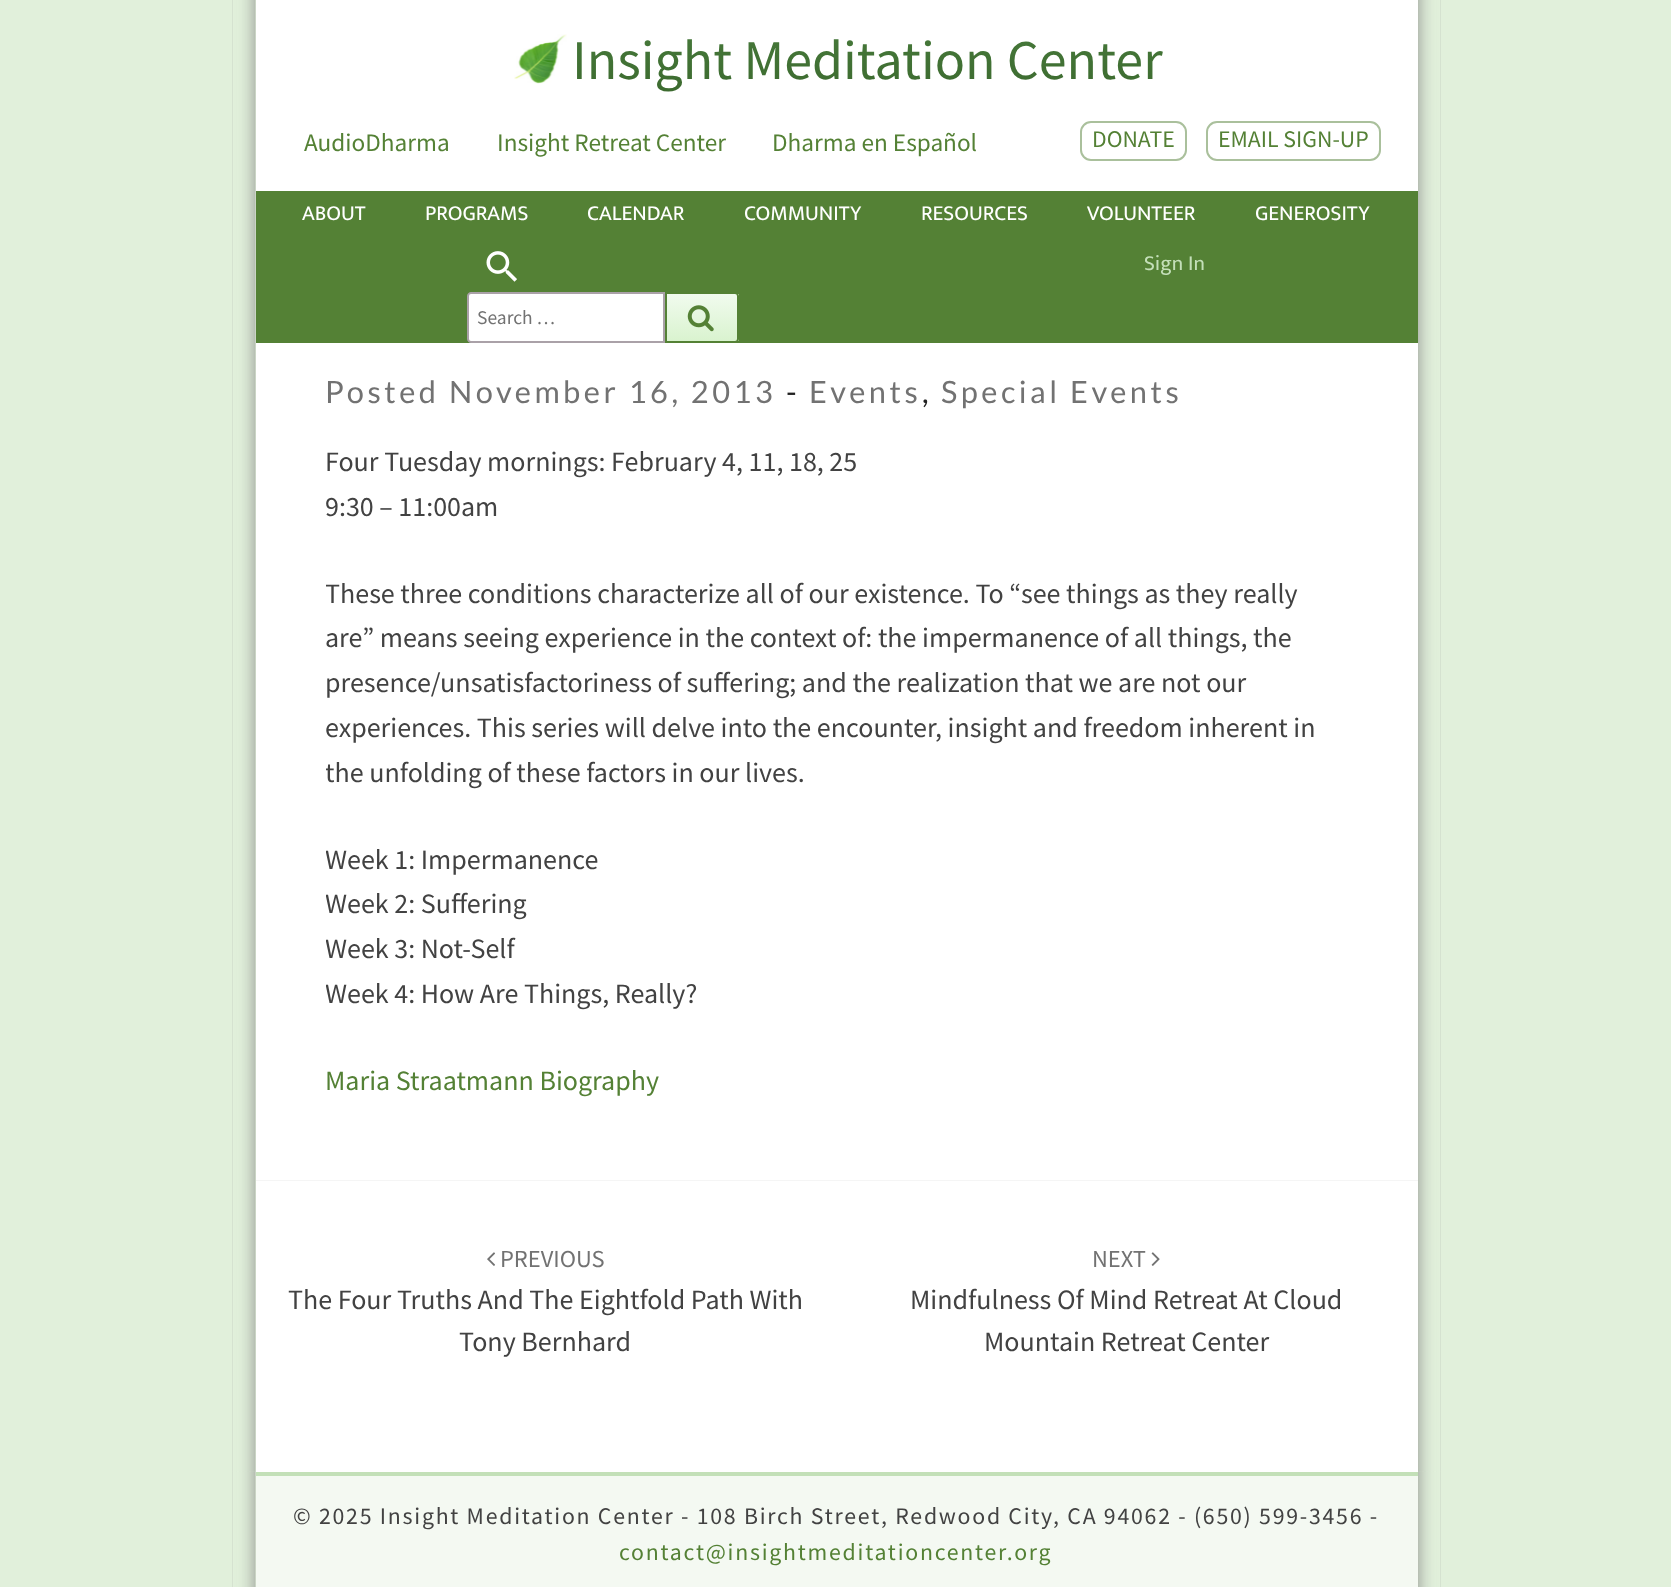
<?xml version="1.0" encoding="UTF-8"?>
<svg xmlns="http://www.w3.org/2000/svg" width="1671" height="1587">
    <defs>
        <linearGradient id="g1" gradientUnits="userSpaceOnUse" x1="836" y1="24" x2="836" y2="95"><stop offset="0" stop-color="#477A3B"/><stop offset="1" stop-color="#3C6A2F"/></linearGradient>
        <linearGradient id="g2" gradientUnits="userSpaceOnUse" x1="702" y1="294" x2="702" y2="341"><stop offset="0" stop-color="#F1FBEE"/><stop offset="1" stop-color="#D9F3CF"/></linearGradient>
        <clipPath id="clip1"><rect x="326" y="439" width="1022" height="706"/></clipPath>
    </defs>
    <rect width="100%" height="100%" fill="#E1F0DB"/>
    <image x="232" y="0" width="1209" height="343" href="img_01.png"/>
    <rect x="256" y="0" width="1162" height="191" fill="#FFFFFF"/>
    <image x="514" y="34" width="53" height="50" href="img_02.png"/>
    <text x="572" y="79" font-family="Source Sans Pro" font-size="56" fill="url(#g1)">Insight Meditation Center</text>
    <text x="304" y="151" font-family="Source Sans Pro" font-size="25.25" fill="#548135">AudioDharma</text>
    <text x="497" y="151" font-family="Source Sans Pro" font-size="25.25" fill="#548135">Insight Retreat Center</text>
    <text x="772" y="151" font-family="Source Sans Pro" font-size="25.25" fill="#548135">Dharma en Español</text>
    <rect x="1081" y="122" width="105" height="38" rx="10" fill="none" stroke="#AAC09C" stroke-width="2"/>
    <text x="1092" y="147" font-family="Source Sans Pro" font-size="23.8" fill="#548135">DONATE</text>
    <rect x="1207" y="122" width="173" height="38" rx="10" fill="none" stroke="#AAC09C" stroke-width="2"/>
    <text x="1218" y="147" font-family="Source Sans Pro" font-size="23.8" fill="#548135">EMAIL SIGN-UP</text>
    <rect x="256" y="191" width="1162" height="152" fill="#548135"/>
    <text x="302" y="220" font-family="Mukta Vaani" font-size="21.5" fill="#FFFFFF">ABOUT</text>
    <text x="425" y="220" font-family="Mukta Vaani" font-size="21.5" fill="#FFFFFF">PROGRAMS</text>
    <text x="587" y="220" font-family="Mukta Vaani" font-size="21.5" fill="#FFFFFF">CALENDAR</text>
    <text x="744" y="220" font-family="Mukta Vaani" font-size="21.5" fill="#FFFFFF">COMMUNITY</text>
    <text x="921" y="220" font-family="Mukta Vaani" font-size="21.5" fill="#FFFFFF">RESOURCES</text>
    <text x="1087" y="220" font-family="Mukta Vaani" font-size="21.5" fill="#FFFFFF">VOLUNTEER</text>
    <text x="1255" y="220" font-family="Mukta Vaani" font-size="21.5" fill="#FFFFFF">GENEROSITY</text>
    <text x="1144" y="270" font-family="Mukta Vaani" font-size="21.5" fill="#C4DFB9">Sign In</text>
    <image x="486" y="251" width="31" height="31" href="img_03.png"/>
    <path d="M 471 293 H 664 V 342 H 471 C 469.5 342 468 340.5 468 339 V 296 C 468 294.5 469.5 293 471 293 Z" fill="#FFFFFF" stroke="#AAA1A8" stroke-width="2"/>
    <text x="477" y="324" font-family="Source Sans Pro" font-size="19.5" fill="#727272">Search …</text>
    <rect x="667" y="294" width="72" height="47" fill="url(#g2)"/>
    <path d="M 666 293 H 735 C 736.5 293 738 294.5 738 296 V 339 C 738 340.5 736.5 342 735 342 H 666 Z" fill="none" stroke="#548135" stroke-width="2"/>
    <image x="687" y="305" width="27" height="27" href="img_04.png"/>
    <image x="232" y="343" width="1209" height="1129" href="img_05.png"/>
    <image x="232" y="1471" width="1209" height="116" href="img_08.png"/>
    <rect x="256" y="343" width="1162" height="1129" fill="#FFFFFF"/>
    <rect x="256" y="1180" width="1162" height="1" fill="#F5F5F5"/>
    <text x="325" y="403" font-family="Lato" font-size="30.75" letter-spacing="3.5" fill="#727272">Posted November 16, 2013</text>
    <text x="786" y="403" font-family="Lato" font-size="30.75" letter-spacing="3.5" fill="#212121">-</text>
    <text x="809" y="403" font-family="Lato" font-size="30.75" letter-spacing="3.5" fill="#727272">Events</text>
    <text x="941" y="403" font-family="Lato" font-size="30.75" letter-spacing="3.5" fill="#727272">Special Events</text>
    <text x="922" y="403" font-family="Lato" font-size="30.75" letter-spacing="3.5" fill="#212121">,</text>
    <text x="325" y="471" font-family="Source Sans Pro" font-size="28" fill="#424242">Four Tuesday mornings: February 4, 11, 18, 25</text>
    <g clip-path="url(#clip1)">
        <text x="325" y="516" font-family="Source Sans Pro" font-size="28" fill="#424242">9:30 – 11:00am</text>
        <text x="325" y="603" font-family="Source Sans Pro" font-size="28" fill="#424242">These three conditions characterize all of our existence. To “see things as they really</text>
    </g>
    <text font-family="Source Sans Pro" font-size="28" fill="#424242">
        <tspan x="325" y="647">are” means seeing experience in the context of: the impermanence of all things, the</tspan>
        <tspan x="325" y="692">presence/unsatisfactoriness of suffering; and the realization that we are not our</tspan>
        <tspan x="325" y="737">experiences. This series will delve into the encounter, insight and freedom inherent in</tspan>
    </text>
    <g clip-path="url(#clip1)">
        <text x="325" y="782" font-family="Source Sans Pro" font-size="28" fill="#424242">the unfolding of these factors in our lives.</text>
        <text font-family="Source Sans Pro" font-size="28" fill="#424242">
            <tspan x="325" y="869">Week 1: Impermanence</tspan>
            <tspan x="325" y="913">Week 2: Suffering</tspan>
            <tspan x="325" y="958">Week 3: Not-Self</tspan>
            <tspan x="325" y="1003">Week 4: How Are Things, Really?</tspan>
        </text>
    </g>
    <text x="325" y="1090" font-family="Source Sans Pro" font-size="28" fill="#548135">Maria Straatmann Biography</text>
    <image x="487" y="1252" width="8" height="14" href="img_06.png"/>
    <text x="500" y="1267" font-family="Source Sans Pro" font-size="24.5" fill="#727272">PREVIOUS</text>
    <text x="288" y="1309" font-family="Source Sans Pro" font-size="28" fill="#424242">The Four Truths And The Eightfold Path With</text>
    <text x="459" y="1351" font-family="Source Sans Pro" font-size="28" fill="#424242">Tony Bernhard</text>
    <text x="1092" y="1267" font-family="Source Sans Pro" font-size="24.5" fill="#727272">NEXT</text>
    <image x="1151" y="1252" width="9" height="14" href="img_07.png"/>
    <text x="910" y="1309" font-family="Source Sans Pro" font-size="28" fill="#424242">Mindfulness Of Mind Retreat At Cloud</text>
    <text x="984" y="1351" font-family="Source Sans Pro" font-size="28" fill="#424242">Mountain Retreat Center</text>
    <rect x="256" y="1476" width="1162" height="111" fill="#F4F9F2"/>
    <rect x="256" y="1472" width="1162" height="4" fill="#C3E0B8"/>
    <text x="293" y="1524" font-family="Source Sans Pro" font-size="23.8" letter-spacing="1.75" fill="#424242">© 2025 Insight Meditation Center - 108 Birch Street, Redwood City, CA 94062 - (650) 599-3456 -</text>
    <text x="619" y="1560" font-family="Source Sans Pro" font-size="23.8" letter-spacing="1.75" fill="#548135">contact@insightmeditationcenter.org</text>
</svg>
